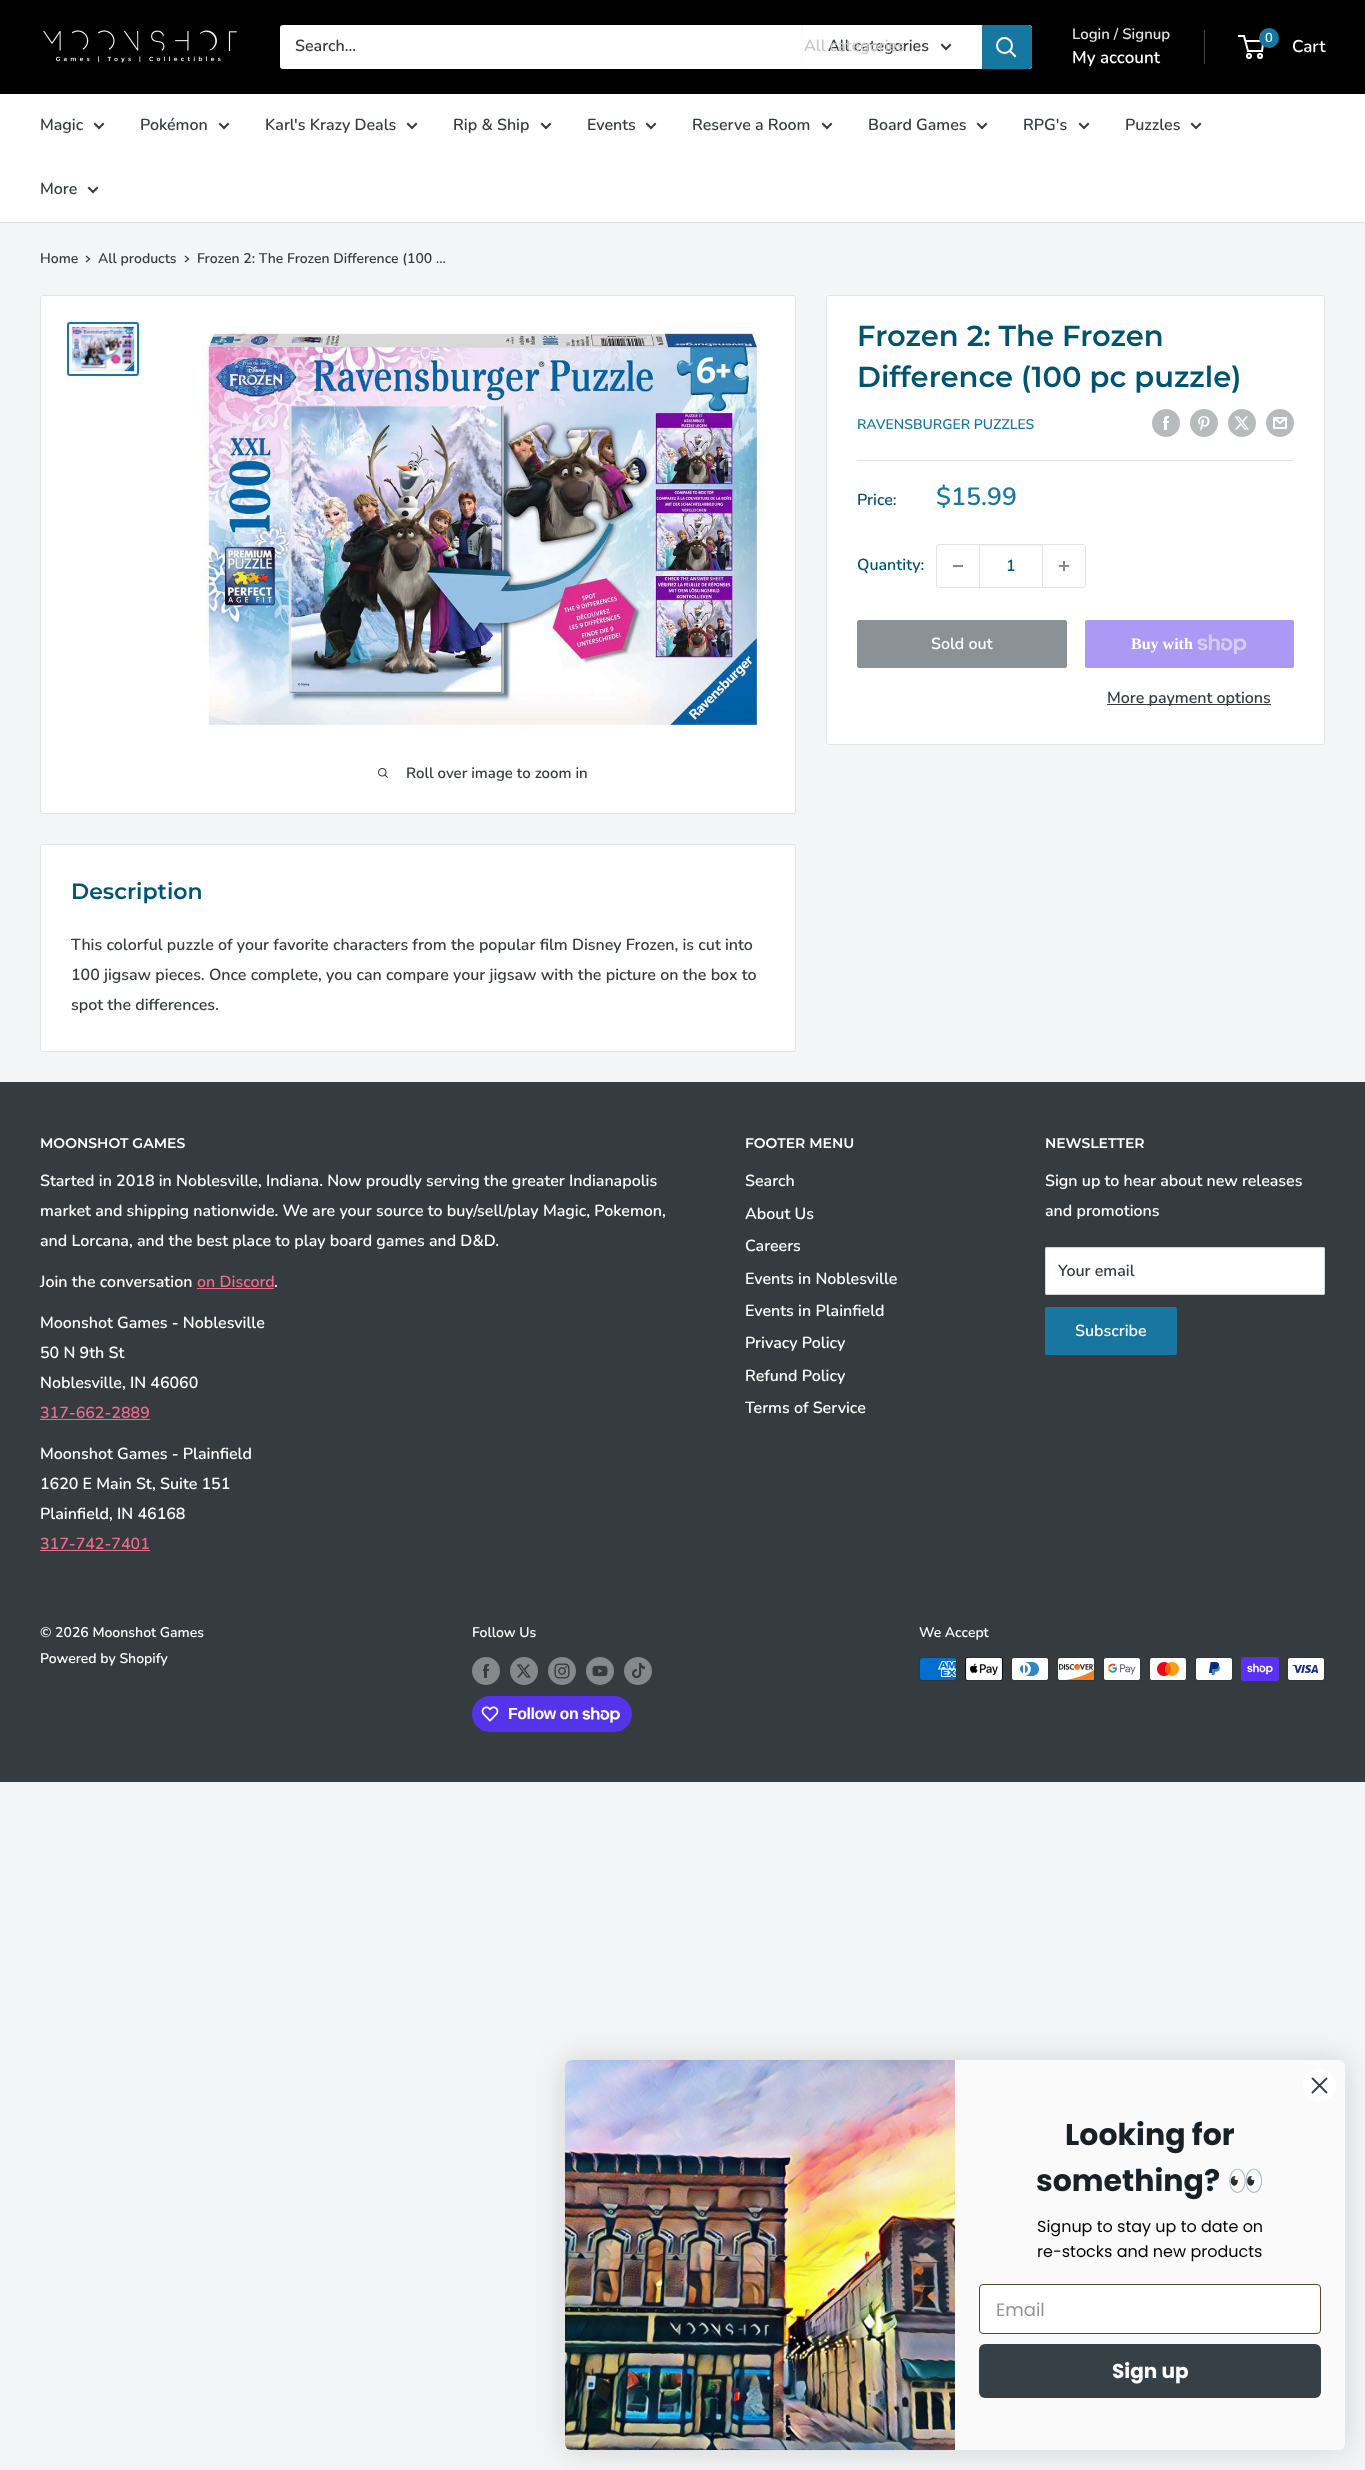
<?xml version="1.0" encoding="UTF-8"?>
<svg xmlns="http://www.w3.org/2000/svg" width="1365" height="2470">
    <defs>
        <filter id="blur1" x="-50%" y="-200%" width="200%" height="500%"><feGaussianBlur stdDeviation="15"/></filter>
    </defs>
    <rect width="100%" height="100%" fill="#F3F5F6"/>
    <rect x="0" y="0" width="1365" height="94" fill="#000000"/>
    <image x="43" y="30" width="194" height="33" href="img_01.png"/>
    <rect x="280" y="25" width="752" height="44" rx="3" fill="#FFFFFF"/>
    <text x="295" y="51" font-family="Nunito" font-size="16" font-weight="600" fill="#353B3E">Search...</text>
    <rect x="802" y="25" width="1" height="44" fill="#F6F7F7"/>
    <text x="828" y="51" font-family="Nunito" font-size="16" font-weight="600" fill="#353B3E">All categories</text>
    <text x="804" y="51" font-family="Nunito" font-size="16" font-weight="600" fill="#C6C7C8">All categories</text>
    <path d="M 950 45 L 946 49 L 942 45" fill="none" stroke="#353B3E" stroke-width="2" stroke-linecap="square"/>
    <path d="M 982 25 H 1029 C 1030.5 25 1032 26.5 1032 28 V 66 C 1032 67.5 1030.5 69 1029 69 H 982 Z" fill="#1777A1"/>
    <path d="M 1015 56 L 1010 51" fill="none" stroke="#FFFFFF" stroke-width="2" stroke-linecap="square"/>
    <circle cx="1004.5" cy="45.5" r="7.5" fill="none" stroke="#FFFFFF" stroke-width="2"/>
    <text x="1072" y="39" font-family="Nunito" font-size="15" font-weight="600" fill="#E1E3E4">Login / Signup</text>
    <rect x="1204" y="30" width="1" height="34" fill="#444444"/>
    <text x="1072" y="63" font-family="Nunito" font-size="17" font-weight="600" fill="#FFFFFF">My account</text>
    <circle cx="1249" cy="56" r="2" fill="none" stroke="#FFFFFF" stroke-width="2"/>
    <circle cx="1260" cy="56" r="2" fill="none" stroke="#FFFFFF" stroke-width="2"/>
    <path d="M 1245.5 41 H 1263.5 L 1262 51 H 1248 L 1244 36 H 1238" fill="none" stroke="#FFFFFF" stroke-width="2"/>
    <circle cx="1269" cy="38" r="10" fill="#1777A1"/>
    <text x="1265" y="42" font-family="Nunito" font-size="13" font-weight="600" fill="#FFFFFF">0</text>
    <text x="1292" y="52" font-family="Nunito" font-size="17" font-weight="600" fill="#FFFFFF">Cart</text>
    <rect x="0" y="94" width="1365" height="128" fill="#FFFFFF"/>
    <rect x="0" y="222" width="1365" height="1" fill="#E1E3E4"/>
    <text x="40" y="130" font-family="Nunito" font-size="16" font-weight="600" fill="#353B3E">Magic</text>
    <path d="M 103 124 L 99 128 L 95 124" fill="none" stroke="#353B3E" stroke-width="2" stroke-linecap="square"/>
    <text x="140" y="130" font-family="Nunito" font-size="16" font-weight="600" fill="#353B3E">Pokémon</text>
    <path d="M 228 124 L 224 128 L 220 124" fill="none" stroke="#353B3E" stroke-width="2" stroke-linecap="square"/>
    <text x="265" y="130" font-family="Nunito" font-size="16" font-weight="600" fill="#353B3E">Karl's Krazy Deals</text>
    <path d="M 416 124 L 412 128 L 408 124" fill="none" stroke="#353B3E" stroke-width="2" stroke-linecap="square"/>
    <text x="453" y="130" font-family="Nunito" font-size="16" font-weight="600" fill="#353B3E">Rip &amp; Ship</text>
    <path d="M 550 124 L 546 128 L 542 124" fill="none" stroke="#353B3E" stroke-width="2" stroke-linecap="square"/>
    <text x="587" y="130" font-family="Nunito" font-size="16" font-weight="600" fill="#353B3E">Events</text>
    <path d="M 655 124 L 651 128 L 647 124" fill="none" stroke="#353B3E" stroke-width="2" stroke-linecap="square"/>
    <text x="692" y="130" font-family="Nunito" font-size="16" font-weight="600" fill="#353B3E">Reserve a Room</text>
    <path d="M 831 124 L 827 128 L 823 124" fill="none" stroke="#353B3E" stroke-width="2" stroke-linecap="square"/>
    <text x="868" y="130" font-family="Nunito" font-size="16" font-weight="600" fill="#353B3E">Board Games</text>
    <path d="M 986 124 L 982 128 L 978 124" fill="none" stroke="#353B3E" stroke-width="2" stroke-linecap="square"/>
    <text x="1023" y="130" font-family="Nunito" font-size="16" font-weight="600" fill="#353B3E">RPG's</text>
    <path d="M 1088 124 L 1084 128 L 1080 124" fill="none" stroke="#353B3E" stroke-width="2" stroke-linecap="square"/>
    <text x="1125" y="130" font-family="Nunito" font-size="16" font-weight="600" fill="#353B3E">Puzzles</text>
    <path d="M 1200 124 L 1196 128 L 1192 124" fill="none" stroke="#353B3E" stroke-width="2" stroke-linecap="square"/>
    <text x="40" y="194" font-family="Nunito" font-size="16" font-weight="600" fill="#353B3E">More</text>
    <path d="M 97 188 L 93 192 L 89 188" fill="none" stroke="#353B3E" stroke-width="2" stroke-linecap="square"/>
    <text x="40" y="263" font-family="Nunito" font-size="14" font-weight="600" fill="#353B3E">Home</text>
    <path d="M 86.5 256.5 L 89.5 259 L 86.5 261.5" fill="none" stroke="#353B3E" stroke-width="1.3" stroke-linecap="square"/>
    <text x="98" y="263" font-family="Nunito" font-size="14" font-weight="600" fill="#353B3E">All products</text>
    <path d="M 185.5 256.5 L 188.5 259 L 185.5 261.5" fill="none" stroke="#353B3E" stroke-width="1.3" stroke-linecap="square"/>
    <text x="197" y="263" font-family="Nunito" font-size="14" font-weight="600" fill="#353B3E">Frozen 2: The Frozen Difference (100 ...</text>
    <rect x="826.5" y="295.5" width="498" height="449" rx="2.5" fill="#FFFFFF" stroke="#E1E3E4"/>
    <text font-family="Montserrat" font-size="29" font-weight="600" fill="#005470">
        <tspan x="857" y="346">Frozen 2: The Frozen</tspan>
        <tspan x="857" y="387">Difference (100 pc puzzle)</tspan>
    </text>
    <text x="857" y="429" font-family="Nunito" font-size="14" font-weight="600" fill="#1777A1">RAVENSBURGER PUZZLES</text>
    <image x="1152" y="409" width="28" height="28" href="img_02.png"/>
    <image x="1190" y="409" width="28" height="28" href="img_03.png"/>
    <image x="1228" y="409" width="28" height="28" href="img_04.png"/>
    <image x="1266" y="409" width="28" height="28" href="img_05.png"/>
    <rect x="857" y="460" width="437" height="1" fill="#E1E3E4"/>
    <text x="857" y="505" font-family="Nunito" font-size="16" font-weight="600" fill="#005470">Price:</text>
    <text x="936" y="505" font-family="Nunito" font-size="25" font-weight="600" fill="#1777A1">$15.99</text>
    <text x="857" y="570" font-family="Nunito" font-size="16" font-weight="600" fill="#005470">Quantity:</text>
    <rect x="936.5" y="544.5" width="149" height="43" rx="2.5" fill="none" stroke="#E1E3E4"/>
    <rect x="953" y="565" width="10" height="2" fill="#86898B"/>
    <rect x="980" y="545" width="62" height="1" fill="#F3F4F4"/>
    <rect x="1042" y="545" width="1" height="42" fill="#E1E3E4"/>
    <rect x="979" y="545" width="1" height="42" fill="#E1E3E4"/>
    <text x="1006" y="571" font-family="Nunito" font-size="16" font-weight="600" fill="#005470">1</text>
    <image x="1059" y="561" width="10" height="10" href="img_06.png"/>
    <rect x="857.5" y="620.5" width="209" height="47" rx="1.5" fill="#8A9297" stroke="#8A9297"/>
    <text x="931" y="649" font-family="Nunito" font-size="16" font-weight="600" fill="#FFFFFF">Sold out</text>
    <rect x="1085" y="620" width="209" height="48" rx="2" fill="#AA99F5"/>
    <text x="1131" y="649" font-family="Liberation Serif" font-size="16" font-weight="700" fill="#FFFFFF">Buy with</text>
    <image x="1197" y="634" width="50" height="20" href="img_07.png"/>
    <rect x="1107" y="704" width="164" height="1" fill="#353B3E"/>
    <text x="1107" y="703" font-family="Nunito" font-size="16" font-weight="600" fill="#353B3E">More payment options</text>
    <rect x="40.5" y="295.5" width="755" height="518" rx="2.5" fill="#FFFFFF" stroke="#E1E3E4"/>
    <rect x="68" y="323" width="70" height="52" rx="2" fill="none" stroke="#1777A1" stroke-width="2"/>
    <image x="71" y="326" width="64" height="46" href="img_08.png"/>
    <image x="201" y="326" width="564" height="406" href="img_09.png"/>
    <image x="378" y="768" width="10" height="10" href="img_10.png"/>
    <text x="406" y="778" font-family="Nunito" font-size="15" font-weight="600" fill="#353B3E">Roll over image to zoom in</text>
    <rect x="40.5" y="844.5" width="755" height="207" rx="2.5" fill="#FFFFFF" stroke="#E1E3E4"/>
    <text x="71" y="899" font-family="Montserrat" font-size="22" font-weight="600" fill="#005470">Description</text>
    <text font-family="Nunito" font-size="16" font-weight="600" fill="#353B3E">
        <tspan x="71" y="950">This colorful puzzle of your favorite characters from the popular film Disney Frozen, is cut into</tspan>
        <tspan x="71" y="980">100 jigsaw pieces. Once complete, you can compare your jigsaw with the picture on the box to</tspan>
        <tspan x="71" y="1010">spot the differences.</tspan>
    </text>
    <rect x="0" y="1082" width="1365" height="700" fill="#353B3E"/>
    <text x="40" y="1148" font-family="Montserrat" font-size="14" font-weight="600" fill="#FFFFFF">MOONSHOT GAMES</text>
    <text font-family="Nunito" font-size="16" font-weight="600" fill="#FFFFFF">
        <tspan x="40" y="1186">Started in 2018 in Noblesville, Indiana. Now proudly serving the greater Indianapolis</tspan>
        <tspan x="40" y="1216">market and shipping nationwide. We are your source to buy/sell/play Magic, Pokemon,</tspan>
        <tspan x="40" y="1246">and Lorcana, and the best place to play board games and D&amp;D.</tspan>
    </text>
    <text x="40" y="1287" font-family="Nunito" font-size="16" font-weight="600" fill="#FFFFFF">Join the conversation</text>
    <text x="197" y="1287" font-family="Nunito" font-size="16" font-weight="600" fill="#F06C8E">on Discord</text>
    <rect x="197" y="1288" width="77" height="1" fill="#F06C8E"/>
    <text x="274" y="1287" font-family="Nunito" font-size="16" font-weight="600" fill="#FFFFFF">.</text>
    <text font-family="Nunito" font-size="16" font-weight="600" fill="#FFFFFF">
        <tspan x="40" y="1328">Moonshot Games - Noblesville</tspan>
        <tspan x="40" y="1358">50 N 9th St</tspan>
        <tspan x="40" y="1388">Noblesville, IN 46060</tspan>
    </text>
    <text x="40" y="1418" font-family="Nunito" font-size="16" font-weight="600" fill="#F06C8E">317-662-2889</text>
    <rect x="40" y="1419" width="110" height="1" fill="#F06C8E"/>
    <text font-family="Nunito" font-size="16" font-weight="600" fill="#FFFFFF">
        <tspan x="40" y="1459">Moonshot Games - Plainfield</tspan>
        <tspan x="40" y="1489">1620 E Main St, Suite 151</tspan>
        <tspan x="40" y="1519">Plainfield, IN 46168</tspan>
    </text>
    <text x="40" y="1549" font-family="Nunito" font-size="16" font-weight="600" fill="#F06C8E">317-742-7401</text>
    <rect x="40" y="1550" width="110" height="1" fill="#F06C8E"/>
    <text x="745" y="1148" font-family="Montserrat" font-size="14" font-weight="600" fill="#FFFFFF">FOOTER MENU</text>
    <text x="745" y="1186" font-family="Nunito" font-size="16" font-weight="600" fill="#FFFFFF">Search</text>
    <text x="745" y="1219" font-family="Nunito" font-size="16" font-weight="600" fill="#FFFFFF">About Us</text>
    <text x="745" y="1251" font-family="Nunito" font-size="16" font-weight="600" fill="#FFFFFF">Careers</text>
    <text x="745" y="1284" font-family="Nunito" font-size="16" font-weight="600" fill="#FFFFFF">Events in Noblesville</text>
    <text x="745" y="1316" font-family="Nunito" font-size="16" font-weight="600" fill="#FFFFFF">Events in Plainfield</text>
    <text x="745" y="1348" font-family="Nunito" font-size="16" font-weight="600" fill="#FFFFFF">Privacy Policy</text>
    <text x="745" y="1381" font-family="Nunito" font-size="16" font-weight="600" fill="#FFFFFF">Refund Policy</text>
    <text x="745" y="1413" font-family="Nunito" font-size="16" font-weight="600" fill="#FFFFFF">Terms of Service</text>
    <text x="1045" y="1148" font-family="Montserrat" font-size="14" font-weight="600" fill="#FFFFFF">NEWSLETTER</text>
    <text font-family="Nunito" font-size="16" font-weight="600" fill="#FFFFFF">
        <tspan x="1045" y="1186">Sign up to hear about new releases</tspan>
        <tspan x="1045" y="1216">and promotions</tspan>
    </text>
    <rect x="1045" y="1247" width="280" height="48" rx="2" fill="#FFFFFF"/>
    <path d="M 1047 1249 H 1323 C 1324 1249 1324 1249 1324 1250 C 1324 1249 1324 1248 1323 1248 H 1047 H 1046 V 1250 C 1046 1249 1046 1249 1047 1249 Z" fill="#F8F8F8"/>
    <rect x="1045.5" y="1247.5" width="279" height="47" rx="1.5" fill="none" stroke="#D4D6D8"/>
    <text x="1058" y="1276" font-family="Nunito" font-size="16" font-weight="600" fill="#353B3E">Your email</text>
    <rect x="1045" y="1307" width="132" height="48" rx="2" fill="#1777A1"/>
    <text x="1075" y="1336" font-family="Nunito" font-size="16" font-weight="600" fill="#FFFFFF">Subscribe</text>
    <text font-family="Nunito" font-size="14" font-weight="600" fill="#FFFFFF">
        <tspan x="40" y="1637">© 2026 Moonshot Games</tspan>
        <tspan x="40" y="1663">Powered by Shopify</tspan>
    </text>
    <text x="472" y="1637" font-family="Nunito" font-size="14" font-weight="600" fill="#FFFFFF">Follow Us</text>
    <image x="472" y="1657" width="28" height="28" href="img_11.png"/>
    <image x="510" y="1657" width="28" height="28" href="img_12.png"/>
    <image x="548" y="1657" width="28" height="28" href="img_13.png"/>
    <image x="586" y="1657" width="28" height="28" href="img_14.png"/>
    <image x="624" y="1657" width="28" height="28" href="img_15.png"/>
    <rect x="472" y="1696" width="160" height="36" rx="18" fill="#5433EB"/>
    <image x="481" y="1706" width="18" height="16" href="img_16.png"/>
    <text x="508" y="1719" font-family="Liberation Sans" font-size="16" font-weight="700" letter-spacing="-0.5" fill="#FFFFFF">Follow on</text>
    <image x="582" y="1707" width="38" height="16" href="img_17.png"/>
    <text x="919" y="1637" font-family="Nunito" font-size="14" font-weight="600" fill="#FFFFFF">We Accept</text>
    <image x="919" y="1657" width="38" height="24" href="img_18.png"/>
    <image x="965" y="1657" width="38" height="24" href="img_19.png"/>
    <image x="1011" y="1657" width="38" height="24" href="img_20.png"/>
    <image x="1057" y="1657" width="38" height="24" href="img_21.png"/>
    <image x="1103" y="1657" width="38" height="24" href="img_22.png"/>
    <image x="1149" y="1657" width="38" height="24" href="img_23.png"/>
    <image x="1195" y="1657" width="38" height="24" href="img_24.png"/>
    <image x="1241" y="1657" width="38" height="24" href="img_25.png"/>
    <image x="1287" y="1657" width="38" height="24" href="img_26.png"/>
    <rect x="565" y="2060" width="780" height="390" rx="6" fill="#000000" fill-opacity="0.15" filter="url(#blur1)"/>
    <rect x="565" y="2060" width="780" height="390" rx="6" fill="#FAFAFA"/>
    <circle cx="1319.5" cy="2085.5" r="16.5" fill="#FFFFFF"/>
    <path d="M 1312.5 2078.5 L 1326.5 2092.5 M 1312.5 2092.5 L 1326.5 2078.5 Z" fill="none" stroke="#373F47" stroke-width="1.8" stroke-linecap="round" stroke-linejoin="round"/>
    <image x="565" y="2060" width="390" height="390" href="img_27.png"/>
    <text x="1065" y="2145" font-family="Poppins" font-size="30" font-weight="700" fill="#182028">Looking for</text>
    <text x="1036" y="2191" font-family="Poppins" font-size="30" font-weight="700" fill="#182028">something?</text>
    <text x="1227" y="2191" font-family="Noto Color Emoji" font-size="30" font-weight="700" fill="#182028">👀</text>
    <text font-family="Poppins" font-size="16" fill="#000000">
        <tspan x="1037" y="2232">Signup to stay up to date on</tspan>
        <tspan x="1037" y="2257">re-stocks and new products</tspan>
    </text>
    <rect x="979.5" y="2284.5" width="341" height="49" rx="3.5" fill="#FFFFFF" stroke="#54462F"/>
    <text x="996" y="2316" font-family="Poppins" font-size="18" fill="#949596">Email</text>
    <rect x="979" y="2344" width="342" height="54" rx="6" fill="#373F47"/>
    <text x="1112" y="2378" font-family="Poppins" font-size="20" font-weight="700" fill="#FFFFFF">Sign up</text>
</svg>
